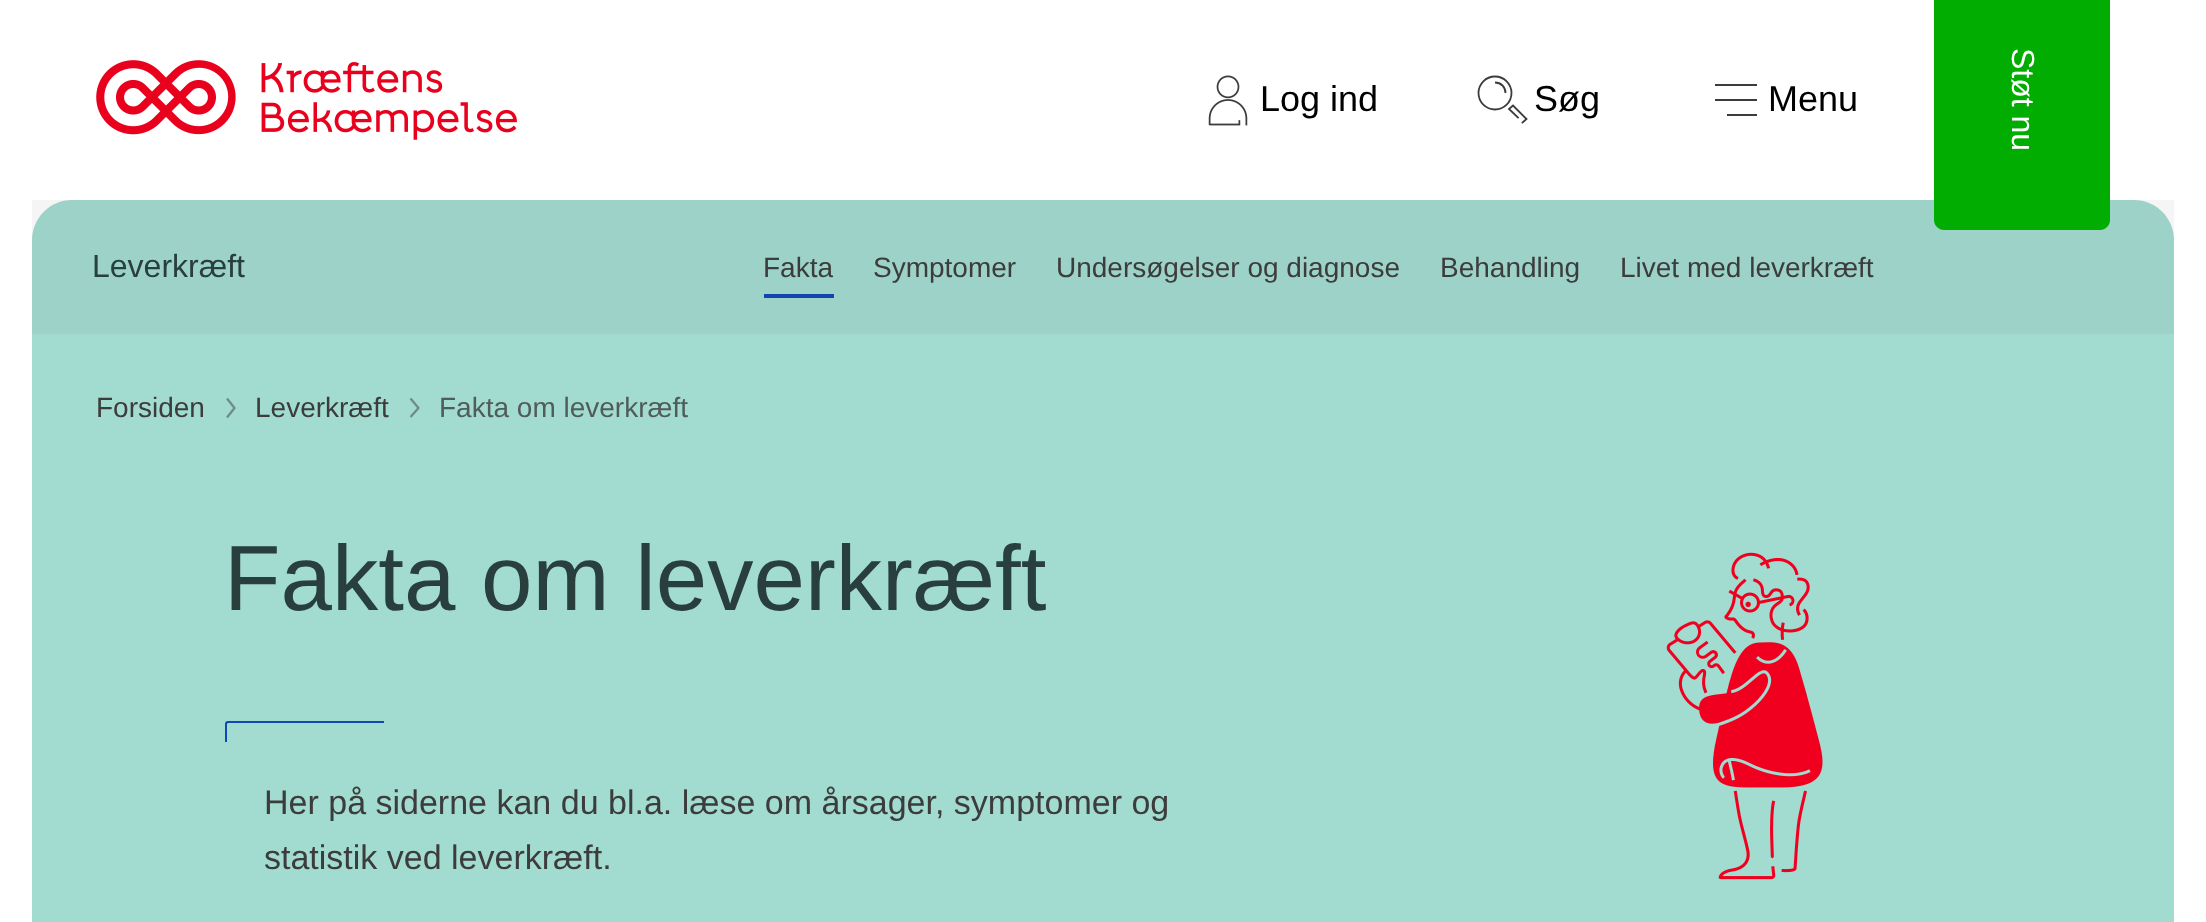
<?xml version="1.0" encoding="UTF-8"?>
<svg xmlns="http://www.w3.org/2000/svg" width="2206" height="922">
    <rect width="100%" height="100%" fill="#FFFFFF"/>
    <image x="96" y="60" width="421" height="80" href="img_01.png"/>
    <image x="1208" y="75" width="40" height="51" href="img_02.png"/>
    <text x="1260" y="111" font-family="Liberation Sans" font-size="36" fill="#000000">Log ind</text>
    <circle cx="1495" cy="93" r="16.5" fill="none" stroke="#3C3C3C" stroke-width="1.8"/>
    <path d="M 1505.5 93 C 1505.5 87 1501 82.5 1495 82.5" fill="none" stroke="#3C3C3C" stroke-width="1.8"/>
    <path d="M 1518 117.5 L 1509 109 L 1513 105.5 L 1526.5 119 L 1522.5 122.5" fill="none" stroke="#3C3C3C" stroke-width="1.8" stroke-linecap="square"/>
    <text x="1534" y="111" font-family="Liberation Sans" font-size="36" fill="#000000">Søg</text>
    <path d="M 1715 99 H 1757 V 101 H 1715 Z M 1715 84 H 1757 V 86 H 1715 Z M 1727 114 H 1757 V 116 H 1727 Z" fill="#3C3C3C"/>
    <text x="1768" y="111" font-family="Liberation Sans" font-size="36" fill="#000000">Menu</text>
    <path d="M 72 200 H 2134 C 2156 200 2174 218 2174 240 V 334 H 32 V 240 C 32 218 50 200 72 200 Z" fill="#A2DBCF"/>
    <rect x="764" y="294" width="70" height="4" fill="#0F47B8"/>
    <rect x="32" y="200" width="2142" height="134" fill="#3C3C3C" fill-opacity="0.05"/>
    <path d="M 1934 -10 H 2110 V 220 C 2110 225.5 2105.5 230 2100 230 H 1944 C 1938.5 230 1934 225.5 1934 220 Z" fill="#00AD00"/>
    <text x="2012" y="48" transform="rotate(90 2012 48)" font-family="Liberation Sans" font-size="32" fill="#FFFFFF">Støt nu</text>
    <text x="92" y="277" font-family="Liberation Sans" font-size="32" fill="#283F3E">Leverkræft</text>
    <text x="763" y="277" font-family="Liberation Sans" font-size="28" fill="#3C3C3C">Fakta</text>
    <text x="873" y="277" font-family="Liberation Sans" font-size="28" fill="#3C3C3C">Symptomer</text>
    <text x="1056" y="277" font-family="Liberation Sans" font-size="28" fill="#3C3C3C">Undersøgelser og diagnose</text>
    <text x="1440" y="277" font-family="Liberation Sans" font-size="28" fill="#3C3C3C">Behandling</text>
    <text x="1620" y="277" font-family="Liberation Sans" font-size="28" fill="#3C3C3C">Livet med leverkræft</text>
    <rect x="32" y="334" width="2142" height="588" fill="#A2DBCF"/>
    <text x="96" y="417" font-family="Liberation Sans" font-size="28" fill="#3C3C3C">Forsiden</text>
    <path d="M 227 398.5 L 234.5 408 L 227 417.5" fill="none" stroke="#6F8C86" stroke-width="2.3" stroke-linejoin="round"/>
    <text x="255" y="417" font-family="Liberation Sans" font-size="28" fill="#3C3C3C">Leverkræft</text>
    <path d="M 410.5 398.5 L 418.5 408 L 410.5 417" fill="none" stroke="#6F8C86" stroke-width="2.3" stroke-linejoin="round"/>
    <text x="439" y="417" font-family="Liberation Sans" font-size="28" fill="#505C59">Fakta om leverkræft</text>
    <text x="224" y="610" font-family="Liberation Sans" font-size="92.5" fill="#283F3E">Fakta om leverkræft</text>
    <path d="M 228 721 H 384 V 723 H 228 Z M 227 724 V 742 H 225 V 724 Z M 228 723 L 227 724 H 225 C 225 722 226 721 228 721 Z" fill="#0F47B8"/>
    <text font-family="Liberation Sans" font-size="34" fill="#3C3C3C">
        <tspan x="264" y="814">Her på siderne kan du bl.a. læse om årsager, symptomer og</tspan>
        <tspan x="264" y="869">statistik ved leverkræft.</tspan>
    </text>
    <image x="1666" y="552" width="157" height="328" href="img_03.png"/>
</svg>
